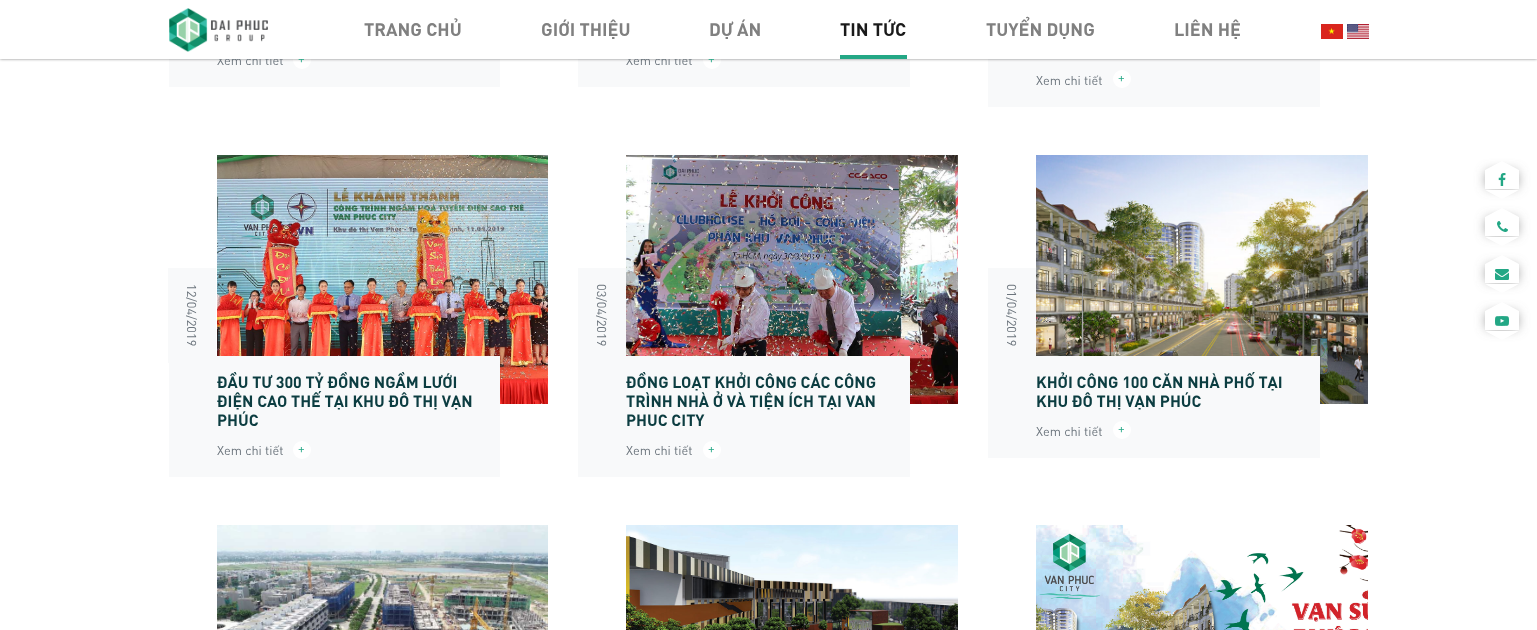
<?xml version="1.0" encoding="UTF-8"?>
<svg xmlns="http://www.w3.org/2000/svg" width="1537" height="630">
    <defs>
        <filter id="blur1" x="-50%" y="-200%" width="200%" height="500%"><feGaussianBlur stdDeviation="1.5"/></filter>
        <clipPath id="clip1"><path d="M 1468 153 H 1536 V 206 H 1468 Z M 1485 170 H 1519 V 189 H 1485 Z" clip-rule="evenodd"/></clipPath>
        <filter id="blur2" x="-50%" y="-200%" width="200%" height="500%"><feGaussianBlur stdDeviation="6"/></filter>
        <clipPath id="clip2"><path d="M 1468 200 H 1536 V 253 H 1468 Z M 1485 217 H 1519 V 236 H 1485 Z" clip-rule="evenodd"/></clipPath>
        <clipPath id="clip3"><path d="M 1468 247 H 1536 V 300 H 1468 Z M 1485 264 H 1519 V 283 H 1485 Z" clip-rule="evenodd"/></clipPath>
        <clipPath id="clip4"><path d="M 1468 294 H 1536 V 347 H 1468 Z M 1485 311 H 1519 V 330 H 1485 Z" clip-rule="evenodd"/></clipPath>
    </defs>
    <rect width="100%" height="100%" fill="#FFFFFF"/>
    <rect x="169" y="59" width="331" height="28" fill="#F8F9FA"/>
    <circle cx="302" cy="60" r="9" fill="#FFFFFF"/>
    <rect x="578" y="59" width="332" height="28" fill="#F8F9FA"/>
    <circle cx="712" cy="60" r="9" fill="#FFFFFF"/>
    <rect x="988" y="59" width="332" height="48" fill="#F8F9FA"/>
    <rect x="0" y="0" width="1537" height="59" fill="#000000" fill-opacity="0.5" filter="url(#blur1)"/>
    <text x="217" y="65" font-family="DIN" font-size="12.75" fill="#6C757D">Xem chi tiết</text>
    <text x="298" y="63" font-family="DIN" font-size="12.75" fill="#23A785">+</text>
    <text x="626" y="65" font-family="DIN" font-size="12.75" fill="#6C757D">Xem chi tiết</text>
    <text x="708" y="63" font-family="DIN" font-size="12.75" fill="#23A785">+</text>
    <rect x="0" y="0" width="1537" height="59" fill="#FFFFFF"/>
    <image x="169" y="8" width="99" height="44" href="img_01.png"/>
    <text x="364" y="36" font-family="DIN" font-size="18" font-weight="700" fill="#808080">TRANG CHỦ</text>
    <text x="541" y="36" font-family="DIN" font-size="18" font-weight="700" fill="#808080">GIỚI THIỆU</text>
    <text x="709" y="36" font-family="DIN" font-size="18" font-weight="700" fill="#808080">DỰ ÁN</text>
    <rect x="840" y="55" width="67" height="4" fill="#23A785"/>
    <text x="840" y="36" font-family="DIN" font-size="18" font-weight="700" fill="#1A1A1A">TIN TỨC</text>
    <text x="986" y="36" font-family="DIN" font-size="18" font-weight="700" fill="#808080">TUYỂN DỤNG</text>
    <text x="1174" y="36" font-family="DIN" font-size="18" font-weight="700" fill="#808080">LIÊN HỆ</text>
    <image x="1321" y="24" width="22" height="15" href="img_02.png"/>
    <image x="1347" y="24" width="22" height="15" href="img_03.png"/>
    <text x="1036" y="85" font-family="DIN" font-size="12.75" fill="#6C757D">Xem chi tiết</text>
    <circle cx="1122" cy="79" r="9" fill="#FFFFFF"/>
    <text x="1118" y="82" font-family="DIN" font-size="12.75" fill="#23A785">+</text>
    <rect x="168" y="268" width="48" height="95" fill="#F8F9FA"/>
    <text x="187" y="284" transform="rotate(90 187 284)" font-family="DIN" font-size="12.75" fill="#6C757D">12/04/2019</text>
    <image x="217" y="155" width="331" height="249" href="img_04.png"/>
    <rect x="169" y="356" width="331" height="121" fill="#F8F9FA"/>
    <text font-family="DIN" font-size="16" font-weight="700" fill="#0C3D41">
        <tspan x="217" y="388">ĐẦU TƯ 300 TỶ ĐỒNG NGẦM LƯỚI</tspan>
        <tspan x="217" y="407">ĐIỆN CAO THẾ TẠI KHU ĐÔ THỊ VẠN</tspan>
        <tspan x="217" y="426">PHÚC</tspan>
    </text>
    <text x="217" y="455" font-family="DIN" font-size="12.75" fill="#6C757D">Xem chi tiết</text>
    <circle cx="302" cy="450" r="9" fill="#FFFFFF"/>
    <text x="298" y="453" font-family="DIN" font-size="12.75" fill="#23A785">+</text>
    <rect x="578" y="268" width="48" height="88" fill="#F8F9FA"/>
    <text x="597" y="284" transform="rotate(90 597 284)" font-family="DIN" font-size="12.75" fill="#6C757D">03/04/2019</text>
    <image x="626" y="155" width="332" height="249" href="img_05.png"/>
    <rect x="578" y="356" width="332" height="121" fill="#F8F9FA"/>
    <text font-family="DIN" font-size="16" font-weight="700" fill="#0C3D41">
        <tspan x="626" y="388">ĐỒNG LOẠT KHỞI CÔNG CÁC CÔNG</tspan>
        <tspan x="626" y="407">TRÌNH NHÀ Ở VÀ TIỆN ÍCH TẠI VAN</tspan>
        <tspan x="626" y="426">PHUC CITY</tspan>
    </text>
    <text x="626" y="455" font-family="DIN" font-size="12.75" fill="#6C757D">Xem chi tiết</text>
    <circle cx="712" cy="450" r="9" fill="#FFFFFF"/>
    <text x="708" y="453" font-family="DIN" font-size="12.75" fill="#23A785">+</text>
    <rect x="988" y="268" width="48" height="88" fill="#F8F9FA"/>
    <text x="1007" y="284" transform="rotate(90 1007 284)" font-family="DIN" font-size="12.75" fill="#6C757D">01/04/2019</text>
    <image x="1036" y="155" width="332" height="249" href="img_06.png"/>
    <rect x="988" y="356" width="332" height="102" fill="#F8F9FA"/>
    <text font-family="DIN" font-size="16" font-weight="700" fill="#0C3D41">
        <tspan x="1036" y="388">KHỞI CÔNG 100 CĂN NHÀ PHỐ TẠI</tspan>
        <tspan x="1036" y="407">KHU ĐÔ THỊ VẠN PHÚC</tspan>
    </text>
    <text x="1036" y="436" font-family="DIN" font-size="12.75" fill="#6C757D">Xem chi tiết</text>
    <circle cx="1122" cy="430" r="9" fill="#FFFFFF"/>
    <text x="1118" y="433" font-family="DIN" font-size="12.75" fill="#23A785">+</text>
    <image x="217" y="525" width="331" height="105" href="img_07.png"/>
    <image x="626" y="525" width="332" height="105" href="img_08.png"/>
    <image x="1036" y="525" width="332" height="105" href="img_09.png"/>
    <g clip-path="url(#clip1)">
        <rect x="1487" y="172" width="30" height="15" fill="#808080" filter="url(#blur2)"/>
    </g>
    <image x="1498" y="173" width="8" height="13" href="img_10.png"/>
    <path d="M 1519 170 H 1485 L 1502 161 Z M 1485 190 H 1519 L 1502 199 Z" fill="#FFFFFF"/>
    <g clip-path="url(#clip2)">
        <rect x="1487" y="219" width="30" height="15" fill="#808080" filter="url(#blur2)"/>
    </g>
    <image x="1497" y="221" width="11" height="11" href="img_11.png"/>
    <path d="M 1519 217 H 1485 L 1502 208 Z M 1485 237 H 1519 L 1502 246 Z" fill="#FFFFFF"/>
    <g clip-path="url(#clip3)">
        <rect x="1487" y="266" width="30" height="15" fill="#808080" filter="url(#blur2)"/>
    </g>
    <image x="1495" y="269" width="14" height="11" href="img_12.png"/>
    <path d="M 1519 264 H 1485 L 1502 255 Z M 1485 284 H 1519 L 1502 293 Z" fill="#FFFFFF"/>
    <g clip-path="url(#clip4)">
        <rect x="1487" y="313" width="30" height="15" fill="#808080" filter="url(#blur2)"/>
    </g>
    <image x="1495" y="316" width="14" height="10" href="img_13.png"/>
    <path d="M 1519 311 H 1485 L 1502 302 Z M 1485 331 H 1519 L 1502 340 Z" fill="#FFFFFF"/>
</svg>
